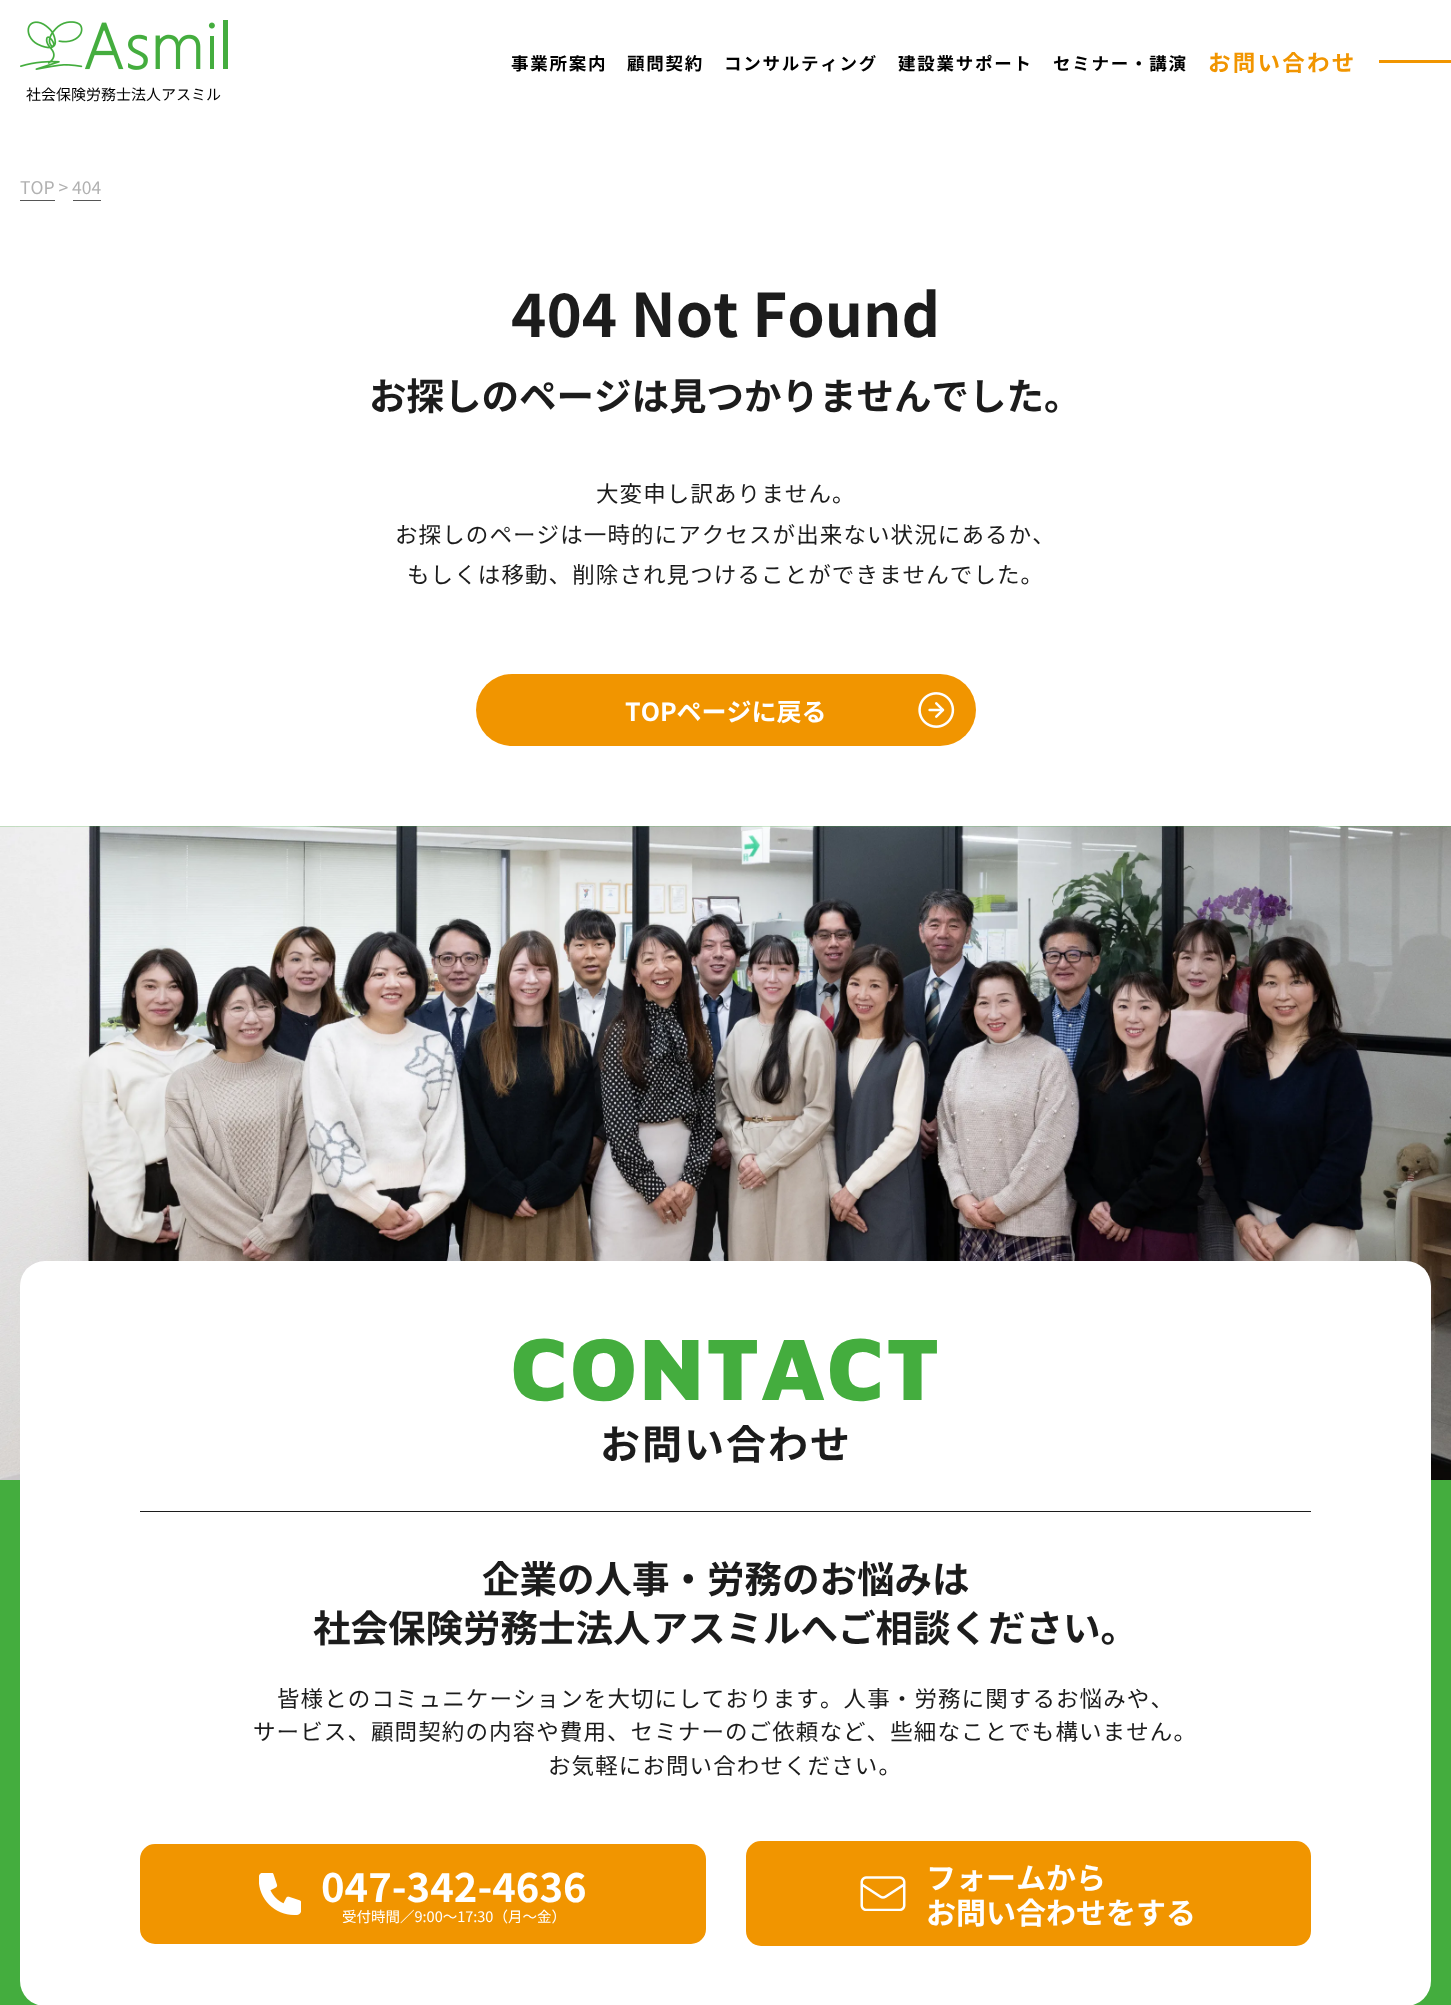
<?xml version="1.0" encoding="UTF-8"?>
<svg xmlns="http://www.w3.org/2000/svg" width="1451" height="2005">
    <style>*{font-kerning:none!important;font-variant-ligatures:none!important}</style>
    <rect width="100%" height="100%" fill="#FFFFFF"/>
    <text x="511" y="70" font-family="Noto Sans JP" font-size="17.5" font-weight="700" letter-spacing="1.75" fill="#000000">事業所案内</text>
    <text x="627" y="70" font-family="Noto Sans JP" font-size="17.5" font-weight="700" letter-spacing="1.75" fill="#000000">顧問契約</text>
    <text x="724" y="70" font-family="Noto Sans JP" font-size="17.5" font-weight="700" letter-spacing="1.75" fill="#000000">コンサルティング</text>
    <text x="898" y="70" font-family="Noto Sans JP" font-size="17.5" font-weight="700" letter-spacing="1.75" fill="#000000">建設業サポート</text>
    <text x="1053" y="70" font-family="Noto Sans JP" font-size="17.5" font-weight="700" letter-spacing="1.75" fill="#000000">セミナー・講演</text>
    <text x="1208" y="71" font-family="Noto Sans JP" font-size="22.5" font-weight="700" letter-spacing="2.25" fill="#F19500">お問い合わせ</text>
    <rect x="1379" y="60" width="72" height="3" fill="#F19500"/>
    <image x="20" y="20" width="208" height="50" href="img_01.png"/>
    <text x="26" y="100" font-family="Noto Sans JP" font-size="15" fill="#000000">社会保険労務士法人アスミル</text>
    <text x="20" y="194" font-family="Noto Sans JP" font-size="17.5" fill="#B1B1B1">TOP &gt; 404</text>
    <rect x="20" y="200" width="35" height="1" fill="#555555"/>
    <rect x="73" y="200" width="28" height="1" fill="#555555"/>
    <text x="511" y="337" font-family="Noto Sans JP" font-size="60" font-weight="700" fill="#1C1C1C">404 Not Found</text>
    <text x="369" y="410" font-family="Noto Sans JP" font-size="37.5" font-weight="700" fill="#1C1C1C">お探しのページは見つかりませんでした。</text>
    <text x="596" y="502" font-family="Noto Sans JP" font-size="22.5" letter-spacing="1.1" fill="#1C1C1C">大変申し訳ありません。</text>
    <text x="395" y="543" font-family="Noto Sans JP" font-size="22.5" letter-spacing="1.1" fill="#1C1C1C">お探しのページは一時的にアクセスが出来ない状況にあるか、</text>
    <text x="407" y="583" font-family="Noto Sans JP" font-size="22.5" letter-spacing="1.1" fill="#1C1C1C">もしくは移動、削除され見つけることができませんでした。</text>
    <rect x="476" y="674" width="500" height="72" rx="36" fill="#F19500"/>
    <text x="625" y="721" font-family="Noto Sans JP" font-size="25" font-weight="700" fill="#FFFFFF">TOPページに戻る</text>
    <image x="918" y="692" width="37" height="36" href="img_02.png"/>
    <rect x="0" y="826" width="1451" height="1179" fill="#44AD3E"/>
    <image x="0" y="826" width="1451" height="654" href="img_03.png"/>
    <rect x="20" y="1261" width="1411" height="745" rx="25" fill="#FFFFFF"/>
    <rect x="140" y="1511" width="1171" height="1" fill="#1C1C1C"/>
    <text x="511" y="1400" font-family="Maven Pro" font-size="90" font-weight="900" letter-spacing="2" fill="#44AD3E">CONTACT</text>
    <text x="600" y="1459" font-family="Noto Sans JP" font-size="40" font-weight="700" letter-spacing="2" fill="#1C1C1C">お問い合わせ</text>
    <text x="482" y="1593" font-family="Noto Sans JP" font-size="37.5" font-weight="700" fill="#1C1C1C">企業の⼈事・労務のお悩みは</text>
    <text x="313" y="1642" font-family="Noto Sans JP" font-size="37.5" font-weight="700" fill="#1C1C1C">社会保険労務士法人アスミルへご相談ください。</text>
    <text x="277" y="1707" font-family="Noto Sans JP" font-size="22.5" letter-spacing="1.1" fill="#1C1C1C">皆様とのコミュニケーションを大切にしております</text>
    <text x="820" y="1707" font-family="Noto Sans JP" font-size="22.5" letter-spacing="1.1" fill="#1C1C1C">。人事・労務に関するお悩みや、</text>
    <text x="253" y="1740" font-family="Noto Sans JP" font-size="22.5" letter-spacing="1.1" fill="#1C1C1C">サービス、顧問契約の内容や費用、セミナーのご依頼など、些細なことでも構いません。</text>
    <text x="548" y="1774" font-family="Noto Sans JP" font-size="22.5" letter-spacing="1.1" fill="#1C1C1C">お気軽にお問い合わせください。</text>
    <rect x="141.5" y="1845.5" width="563" height="97" rx="13.5" fill="#F19500" stroke="#F19500" stroke-width="3"/>
    <image x="259" y="1873" width="42" height="42" href="img_04.png"/>
    <text x="321" y="1902" font-family="Noto Sans JP" font-size="40" font-weight="700" fill="#FFFFFF">047-342-4636</text>
    <text x="342" y="1922" font-family="Noto Sans JP" font-size="14.5" fill="#FFFFFF">受付時間／9:00～17:30（月～金）</text>
    <rect x="747.5" y="1842.5" width="562" height="102" rx="13.5" fill="#F19500" stroke="#F19500" stroke-width="3"/>
    <image x="860" y="1876" width="46" height="35" href="img_05.png"/>
    <text font-family="Noto Sans JP" font-size="30" font-weight="700" fill="#FFFFFF">
        <tspan x="926" y="1889">フォームから</tspan>
        <tspan x="926" y="1924">お問い合わせをする</tspan>
    </text>
</svg>
